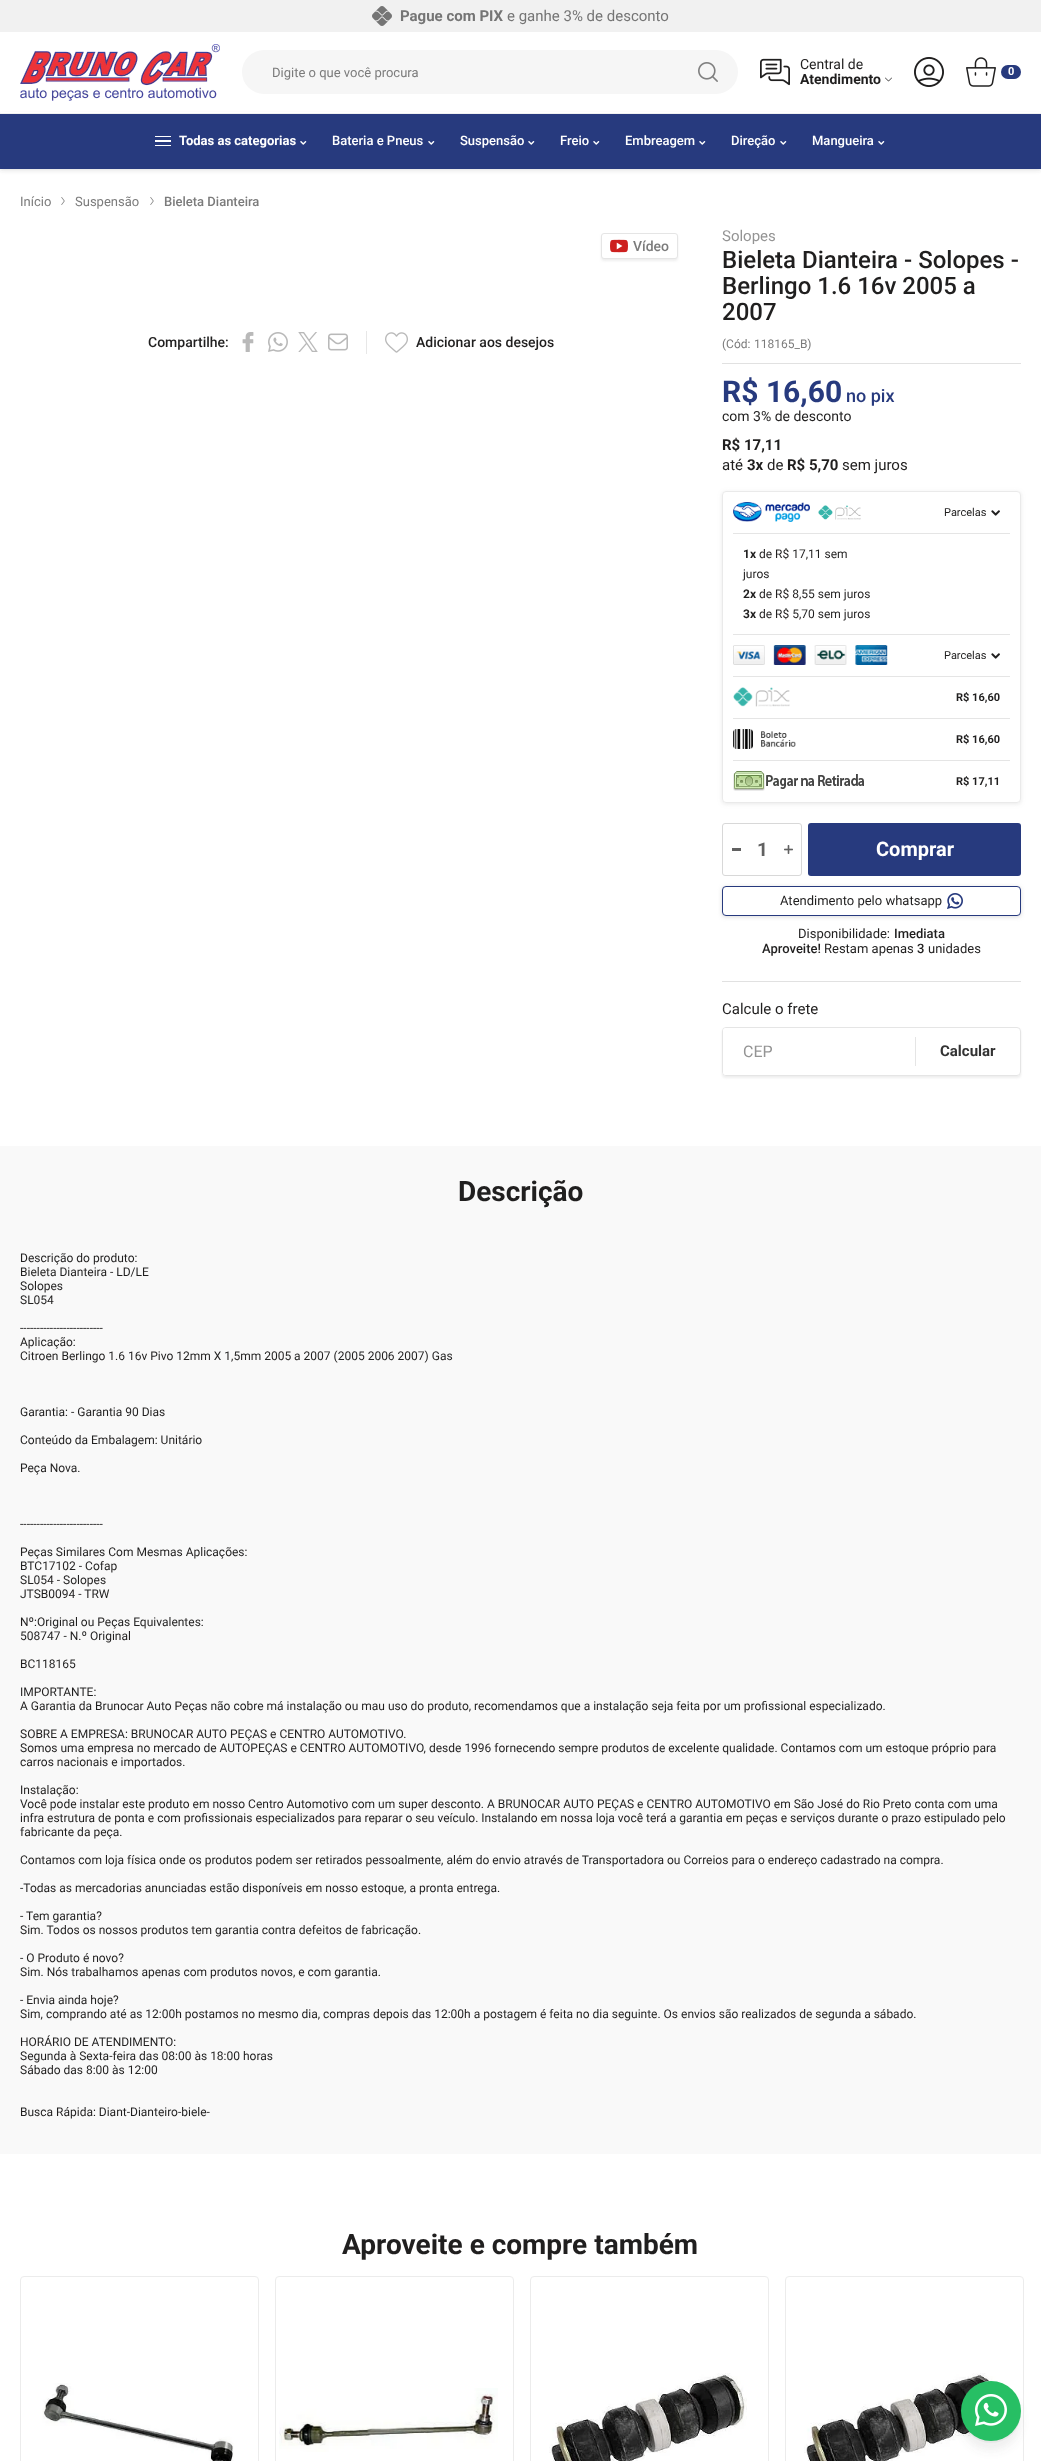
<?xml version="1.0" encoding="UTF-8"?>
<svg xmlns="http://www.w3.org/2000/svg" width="1041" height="2461">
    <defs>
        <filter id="blur1" x="-50%" y="-200%" width="200%" height="500%"><feGaussianBlur stdDeviation="2"/></filter>
        <filter id="blur2" x="-50%" y="-200%" width="200%" height="500%"><feGaussianBlur stdDeviation="1"/></filter>
        <clipPath id="clip1"><path d="M 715 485 H 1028 V 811 H 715 Z M 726 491 H 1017 C 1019 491 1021 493 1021 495 V 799 C 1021 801 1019 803 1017 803 H 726 C 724 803 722 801 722 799 V 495 C 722 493 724 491 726 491 Z" clip-rule="evenodd"/></clipPath>
        <clipPath id="clip2"><path d="M 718 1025 H 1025 V 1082 H 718 Z M 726 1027 H 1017 C 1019 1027 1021 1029 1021 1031 V 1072 C 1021 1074 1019 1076 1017 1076 H 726 C 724 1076 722 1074 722 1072 V 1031 C 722 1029 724 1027 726 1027 Z" clip-rule="evenodd"/></clipPath>
        <filter id="blur3" x="-50%" y="-200%" width="200%" height="500%"><feGaussianBlur stdDeviation="4"/></filter>
        <filter id="blur4" x="-50%" y="-200%" width="200%" height="500%"><feGaussianBlur stdDeviation="0.5"/></filter>
    </defs>
    <rect width="100%" height="100%" fill="#FFFFFF"/>
    <rect x="0" y="0" width="1041" height="32" fill="#F1F1F1"/>
    <image x="372" y="6" width="20" height="20" href="img_01.png"/>
    <text x="400" y="21" font-family="Roboto" font-size="15" font-weight="700" fill="#757575">Pague com PIX</text>
    <text x="507" y="21" font-family="Roboto" font-size="15" fill="#757575">e ganhe 3% de desconto</text>
    <rect x="0" y="115" width="1041" height="55" fill="#525252" fill-opacity="0.2" filter="url(#blur1)"/>
    <rect x="1" y="112" width="1039" height="1" fill="#FFFFFF"/>
    <rect x="0" y="113" width="1041" height="1" fill="#F1F1F1"/>
    <image x="20" y="44" width="200" height="57" href="img_02.png"/>
    <rect x="242" y="50" width="496" height="44" rx="22" fill="#F6F6F6"/>
    <text x="272" y="77" font-family="Roboto" font-size="13" fill="#7B7B7B">Digite o que você procura</text>
    <image x="698" y="62" width="20" height="20" href="img_03.png"/>
    <image x="760" y="58" width="30" height="28" href="img_04.png"/>
    <text x="800" y="69" font-family="Roboto" font-size="14" fill="#201F1F">Central de</text>
    <text x="800" y="84" font-family="Roboto" font-size="14" font-weight="700" fill="#201F1F">Atendimento</text>
    <image x="885" y="77" width="7" height="5" href="img_05.png"/>
    <image x="914" y="57" width="30" height="30" href="img_06.png"/>
    <image x="966" y="57" width="30" height="30" href="img_07.png"/>
    <rect x="1001" y="65" width="20" height="14" rx="7" fill="#273A7E"/>
    <text x="1008" y="75" font-family="Roboto" font-size="11" font-weight="700" fill="#FFFFFF">0</text>
    <rect x="0" y="114" width="1041" height="55" fill="#273A7E"/>
    <rect x="155" y="145" width="16" height="1" fill="#FFFFFF"/>
    <rect x="155" y="140" width="16" height="2" fill="#FFFFFF"/>
    <rect x="155" y="136" width="16" height="1" fill="#FFFFFF"/>
    <text x="179" y="145" font-family="Roboto" font-size="13" font-weight="700" fill="#FFFFFF">Todas as categorias</text>
    <image x="300" y="141" width="7" height="4" href="img_08.png"/>
    <text x="332" y="145" font-family="Roboto" font-size="13" font-weight="500" fill="#FFFFFF">Bateria e Pneus</text>
    <image x="428" y="141" width="7" height="4" href="img_08.png"/>
    <text x="460" y="145" font-family="Roboto" font-size="13" font-weight="500" fill="#FFFFFF">Suspensão</text>
    <image x="528" y="141" width="7" height="4" href="img_08.png"/>
    <text x="560" y="145" font-family="Roboto" font-size="13" font-weight="500" fill="#FFFFFF">Freio</text>
    <image x="593" y="141" width="7" height="4" href="img_08.png"/>
    <text x="625" y="145" font-family="Roboto" font-size="13" font-weight="500" fill="#FFFFFF">Embreagem</text>
    <image x="699" y="141" width="7" height="4" href="img_08.png"/>
    <text x="731" y="145" font-family="Roboto" font-size="13" font-weight="500" fill="#FFFFFF">Direção</text>
    <image x="780" y="141" width="7" height="4" href="img_08.png"/>
    <text x="812" y="145" font-family="Roboto" font-size="13" font-weight="500" fill="#FFFFFF">Mangueira</text>
    <image x="878" y="141" width="7" height="4" href="img_08.png"/>
    <text x="20" y="206" font-family="Roboto" font-size="13" fill="#7B7B7B">Início</text>
    <image x="61" y="197" width="4" height="8" href="img_09.png"/>
    <text x="75" y="206" font-family="Roboto" font-size="13" fill="#7B7B7B">Suspensão</text>
    <image x="150" y="197" width="4" height="8" href="img_09.png"/>
    <text x="164" y="206" font-family="Roboto" font-size="13" font-weight="500" fill="#7B7B7B">Bieleta Dianteira</text>
    <rect x="601" y="235" width="77" height="26" rx="3" fill="#CDCDCD" fill-opacity="0.35" filter="url(#blur2)"/>
    <rect x="601.5" y="233.5" width="76" height="25" rx="2.5" fill="#FFFFFF" stroke="#E5E5E5"/>
    <image x="610" y="239" width="18" height="14" href="img_10.png"/>
    <text x="633" y="251" font-family="Roboto" font-size="14" font-weight="500" fill="#7B7B7B">Vídeo</text>
    <text x="148" y="347" font-family="Roboto" font-size="14" font-weight="500" fill="#201F1F">Compartilhe:</text>
    <image x="242" y="332" width="12" height="20" href="img_11.png"/>
    <image x="268" y="332" width="20" height="20" href="img_12.png"/>
    <image x="298" y="332" width="20" height="20" href="img_13.png"/>
    <image x="328" y="333" width="20" height="18" href="img_14.png"/>
    <rect x="366" y="331" width="1" height="23" fill="#E7E7E7"/>
    <image x="385" y="332" width="23" height="21" href="img_15.png"/>
    <text x="416" y="347" font-family="Roboto" font-size="14" font-weight="500" fill="#201F1F">Adicionar aos desejos</text>
    <rect x="722" y="363" width="299" height="1" fill="#E1E1E1"/>
    <text x="722" y="241" font-family="Roboto" font-size="15" fill="#949494">Solopes</text>
    <text font-family="Roboto" font-size="24" font-weight="500" fill="#201F1F">
        <tspan x="722" y="268">Bieleta Dianteira - Solopes -</tspan>
        <tspan x="722" y="294">Berlingo 1.6 16v 2005 a</tspan>
        <tspan x="722" y="320">2007</tspan>
    </text>
    <text x="722" y="348" font-family="Roboto" font-size="12" fill="#7B7B7B">(Cód:</text>
    <text x="754" y="348" font-family="Roboto" font-size="12" fill="#7B7B7B">118165_B)</text>
    <text x="722" y="402" font-family="Roboto" font-size="30" font-weight="700" fill="#273A7E">R$ 16,60</text>
    <text x="846" y="402" font-family="Roboto" font-size="18" font-weight="500" fill="#273A7E">no pix</text>
    <text x="722" y="421" font-family="Roboto" font-size="14" fill="#201F1F">com 3% de desconto</text>
    <text x="722" y="450" font-family="Roboto" font-size="15" font-weight="700" fill="#201F1F">R$ 17,11</text>
    <text x="722" y="470" font-family="Roboto" font-size="15" fill="#201F1F">até</text>
    <text x="747" y="470" font-family="Roboto" font-size="15" font-weight="700" fill="#201F1F">3x</text>
    <text x="767" y="470" font-family="Roboto" font-size="15" fill="#201F1F">de</text>
    <text x="787" y="470" font-family="Roboto" font-size="15" font-weight="700" fill="#201F1F">R$ 5,70</text>
    <text x="842" y="470" font-family="Roboto" font-size="15" fill="#201F1F">sem juros</text>
    <g clip-path="url(#clip1)">
        <rect x="722" y="492" width="299" height="312" rx="4" fill="#B1B1B1" fill-opacity="0.28" filter="url(#blur1)"/>
    </g>
    <rect x="722.5" y="491.5" width="298" height="311" rx="3.5" fill="none" stroke="#EAEAEA"/>
    <image x="733" y="502" width="77" height="20" href="img_16.png"/>
    <image x="818" y="505" width="43" height="15" href="img_17.png"/>
    <text x="944" y="516" font-family="Roboto" font-size="11" fill="#201F1F">Parcelas</text>
    <image x="991" y="510" width="9" height="6" href="img_18.png"/>
    <rect x="733" y="533" width="277" height="1" fill="#E5E5E5"/>
    <text x="743" y="558" font-family="Roboto" font-size="12" font-weight="700" fill="#201F1F">1x</text>
    <text x="759" y="558" font-family="Roboto" font-size="12" fill="#201F1F">de R$ 17,11 sem</text>
    <text x="743" y="578" font-family="Roboto" font-size="12" fill="#201F1F">juros</text>
    <text x="743" y="598" font-family="Roboto" font-size="12" font-weight="700" fill="#201F1F">2x</text>
    <text x="759" y="598" font-family="Roboto" font-size="12" fill="#201F1F">de R$ 8,55 sem juros</text>
    <text x="743" y="618" font-family="Roboto" font-size="12" font-weight="700" fill="#201F1F">3x</text>
    <text x="759" y="618" font-family="Roboto" font-size="12" fill="#201F1F">de R$ 5,70 sem juros</text>
    <rect x="733" y="634" width="277" height="1" fill="#E5E5E5"/>
    <image x="733" y="645" width="155" height="20" href="img_19.png"/>
    <text x="944" y="659" font-family="Roboto" font-size="11" fill="#201F1F">Parcelas</text>
    <image x="991" y="653" width="9" height="6" href="img_18.png"/>
    <rect x="733" y="676" width="277" height="1" fill="#E5E5E5"/>
    <image x="733" y="687" width="57" height="20" href="img_20.png"/>
    <text x="956" y="701" font-family="Roboto" font-size="11" font-weight="700" fill="#201F1F">R$ 16,60</text>
    <rect x="733" y="718" width="277" height="1" fill="#E5E5E5"/>
    <image x="733" y="729" width="63" height="20" href="img_21.png"/>
    <text x="956" y="743" font-family="Roboto" font-size="11" font-weight="700" fill="#201F1F">R$ 16,60</text>
    <rect x="733" y="760" width="277" height="1" fill="#E5E5E5"/>
    <image x="733" y="771" width="131" height="20" href="img_22.png"/>
    <text x="956" y="785" font-family="Roboto" font-size="11" font-weight="700" fill="#201F1F">R$ 17,11</text>
    <rect x="722.5" y="823.5" width="79" height="52" rx="2.5" fill="none" stroke="#D8D8D8"/>
    <rect x="732" y="848" width="9" height="3" fill="#616161"/>
    <text x="757" y="856" font-family="Roboto" font-size="19" font-weight="700" fill="#616161">1</text>
    <image x="784" y="845" width="9" height="9" href="img_23.png"/>
    <rect x="808" y="823" width="213" height="53" rx="3" fill="#273A7E"/>
    <text x="876" y="856" font-family="Roboto" font-size="20" font-weight="700" fill="#FFFFFF">Comprar</text>
    <rect x="722" y="887" width="299" height="30" rx="4" fill="#B1B1B1" fill-opacity="0.46" filter="url(#blur1)"/>
    <rect x="722.5" y="886.5" width="298" height="29" rx="3.5" fill="#FFFFFF" stroke="#273A7E"/>
    <text x="780" y="905" font-family="Roboto" font-size="13" fill="#201F1F">Atendimento pelo whatsapp</text>
    <image x="947" y="893" width="16" height="16" href="img_24.png"/>
    <text x="798" y="938" font-family="Roboto" font-size="13" fill="#201F1F">Disponibilidade:</text>
    <text x="894" y="938" font-family="Roboto" font-size="13" font-weight="500" fill="#201F1F">Imediata</text>
    <text x="762" y="953" font-family="Roboto" font-size="13" font-weight="500" fill="#201F1F">Aproveite!</text>
    <text x="824" y="953" font-family="Roboto" font-size="13" fill="#201F1F">Restam apenas</text>
    <text x="917" y="953" font-family="Roboto" font-size="13" font-weight="500" fill="#201F1F">3</text>
    <text x="928" y="953" font-family="Roboto" font-size="13" fill="#201F1F">unidades</text>
    <rect x="722" y="981" width="299" height="1" fill="#E1E1E1"/>
    <text x="722" y="1014" font-family="Roboto" font-size="15" fill="#201F1F">Calcule o frete</text>
    <g clip-path="url(#clip2)">
        <rect x="722" y="1029" width="299" height="49" rx="4" fill="#CDCDCD" fill-opacity="0.35" filter="url(#blur2)"/>
    </g>
    <rect x="722.5" y="1027.5" width="298" height="48" rx="3.5" fill="none" stroke="#E5E5E5"/>
    <rect x="723" y="1028" width="192" height="47" rx="3" fill="#FFFFFF"/>
    <text x="743" y="1057" font-family="Roboto" font-size="16" fill="#949494">CEP</text>
    <rect x="915" y="1037" width="1" height="29" fill="#E5E5E5"/>
    <text x="940" y="1056" font-family="Roboto" font-size="15" font-weight="700" fill="#333333">Calcular</text>
    <rect x="0" y="1146" width="1041" height="1008" fill="#F9F9F9"/>
    <text x="458" y="1201" font-family="Roboto" font-size="28" font-weight="700" fill="#201F1F">Descrição</text>
    <text font-family="Roboto" font-size="12" fill="#201F1F">
        <tspan x="20" y="1262">Descrição do produto:</tspan>
        <tspan x="20" y="1276">Bieleta Dianteira - LD/LE</tspan>
        <tspan x="20" y="1290">Solopes</tspan>
        <tspan x="20" y="1304">SL054</tspan>
    </text>
    <text font-family="Roboto" font-size="12" fill="#201F1F">
        <tspan x="20" y="1332">-------------------------</tspan>
        <tspan x="20" y="1346">Aplicação:</tspan>
        <tspan x="20" y="1360">Citroen Berlingo 1.6 16v Pivo 12mm X 1,5mm 2005 a 2007 (2005 2006 2007) Gas</tspan>
    </text>
    <text x="20" y="1416" font-family="Roboto" font-size="12" fill="#201F1F">Garantia: - Garantia 90 Dias</text>
    <text x="20" y="1444" font-family="Roboto" font-size="12" fill="#201F1F">Conteúdo da Embalagem: Unitário</text>
    <text x="20" y="1472" font-family="Roboto" font-size="12" fill="#201F1F">Peça Nova.</text>
    <text x="20" y="1528" font-family="Roboto" font-size="12" fill="#201F1F">-------------------------</text>
    <text font-family="Roboto" font-size="12" fill="#201F1F">
        <tspan x="20" y="1556">Peças Similares Com Mesmas Aplicações:</tspan>
        <tspan x="20" y="1570">BTC17102 - Cofap</tspan>
        <tspan x="20" y="1584">SL054 - Solopes</tspan>
        <tspan x="20" y="1598">JTSB0094 - TRW</tspan>
    </text>
    <text font-family="Roboto" font-size="12" fill="#201F1F">
        <tspan x="20" y="1626">Nº:Original ou Peças Equivalentes:</tspan>
        <tspan x="20" y="1640">508747 - N.º Original</tspan>
    </text>
    <text x="20" y="1668" font-family="Roboto" font-size="12" fill="#201F1F">BC118165</text>
    <text font-family="Roboto" font-size="12" fill="#201F1F">
        <tspan x="20" y="1696">IMPORTANTE:</tspan>
        <tspan x="20" y="1710">A Garantia da Brunocar Auto Peças não cobre má instalação ou mau uso do produto, recomendamos que a instalação seja feita por um profissional especializado.</tspan>
    </text>
    <text font-family="Roboto" font-size="12" fill="#201F1F">
        <tspan x="20" y="1738">SOBRE A EMPRESA: BRUNOCAR AUTO PEÇAS e CENTRO AUTOMOTIVO.</tspan>
        <tspan x="20" y="1752">Somos uma empresa no mercado de AUTOPEÇAS e CENTRO AUTOMOTIVO, desde 1996 fornecendo sempre produtos de excelente qualidade. Contamos com um estoque próprio para</tspan>
        <tspan x="20" y="1766">carros nacionais e importados.</tspan>
    </text>
    <text font-family="Roboto" font-size="12" fill="#201F1F">
        <tspan x="20" y="1794">Instalação:</tspan>
        <tspan x="20" y="1808">Você pode instalar este produto em nosso Centro Automotivo com um super desconto. A BRUNOCAR AUTO PEÇAS e CENTRO AUTOMOTIVO em São José do Rio Preto conta com uma</tspan>
        <tspan x="20" y="1822">infra estrutura de ponta e com profissionais especializados para reparar o seu veículo. Instalando em nossa loja você terá a garantia em peças e serviços durante o prazo estipulado pelo</tspan>
        <tspan x="20" y="1836">fabricante da peça.</tspan>
    </text>
    <text x="20" y="1864" font-family="Roboto" font-size="12" fill="#201F1F">Contamos com loja física onde os produtos podem ser retirados pessoalmente, além do envio através de Transportadora ou Correios para o endereço cadastrado na compra.</text>
    <text x="20" y="1892" font-family="Roboto" font-size="12" fill="#201F1F">-Todas as mercadorias anunciadas estão disponíveis em nosso estoque, a pronta entrega.</text>
    <text font-family="Roboto" font-size="12" fill="#201F1F">
        <tspan x="20" y="1920">- Tem garantia?</tspan>
        <tspan x="20" y="1934">Sim. Todos os nossos produtos tem garantia contra defeitos de fabricação.</tspan>
    </text>
    <text font-family="Roboto" font-size="12" fill="#201F1F">
        <tspan x="20" y="1962">- O Produto é novo?</tspan>
        <tspan x="20" y="1976">Sim. Nós trabalhamos apenas com produtos novos, e com garantia.</tspan>
    </text>
    <text font-family="Roboto" font-size="12" fill="#201F1F">
        <tspan x="20" y="2004">- Envia ainda hoje?</tspan>
        <tspan x="20" y="2018">Sim, comprando até as 12:00h postamos no mesmo dia, compras depois das 12:00h a postagem é feita no dia seguinte. Os envios são realizados de segunda a sábado.</tspan>
    </text>
    <text font-family="Roboto" font-size="12" fill="#201F1F">
        <tspan x="20" y="2046">HORÁRIO DE ATENDIMENTO:</tspan>
        <tspan x="20" y="2060">Segunda à Sexta-feira das 08:00 às 18:00 horas</tspan>
        <tspan x="20" y="2074">Sábado das 8:00 às 12:00</tspan>
    </text>
    <text x="20" y="2116" font-family="Roboto" font-size="12" fill="#201F1F">Busca Rápida: Diant-Dianteiro-biele-</text>
    <text x="342" y="2254" font-family="Roboto" font-size="28" font-weight="700" fill="#201F1F">Aproveite e compre também</text>
    <rect x="20.5" y="2276.5" width="238" height="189" rx="3.5" fill="none" stroke="#ECECEC"/>
    <image x="42" y="2383" width="192" height="78" href="img_25.png"/>
    <rect x="275.5" y="2276.5" width="238" height="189" rx="3.5" fill="none" stroke="#ECECEC"/>
    <image x="279" y="2388" width="219" height="64" href="img_26.png"/>
    <rect x="530.5" y="2276.5" width="238" height="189" rx="3.5" fill="none" stroke="#ECECEC"/>
    <image x="549" y="2373" width="198" height="88" href="img_27.png"/>
    <rect x="785.5" y="2276.5" width="238" height="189" rx="3.5" fill="none" stroke="#ECECEC"/>
    <image x="804" y="2373" width="198" height="88" href="img_28.png"/>
    <rect x="961" y="2391" width="60" height="60" rx="30" fill="#676767" fill-opacity="0.1" filter="url(#blur3)"/>
    <rect x="961" y="2383" width="60" height="60" rx="30" fill="#000000" fill-opacity="0.04" filter="url(#blur4)"/>
    <circle cx="991" cy="2411" r="30" fill="#27BF64"/>
    <image x="975" y="2394" width="32" height="32" href="img_29.png"/>
</svg>
